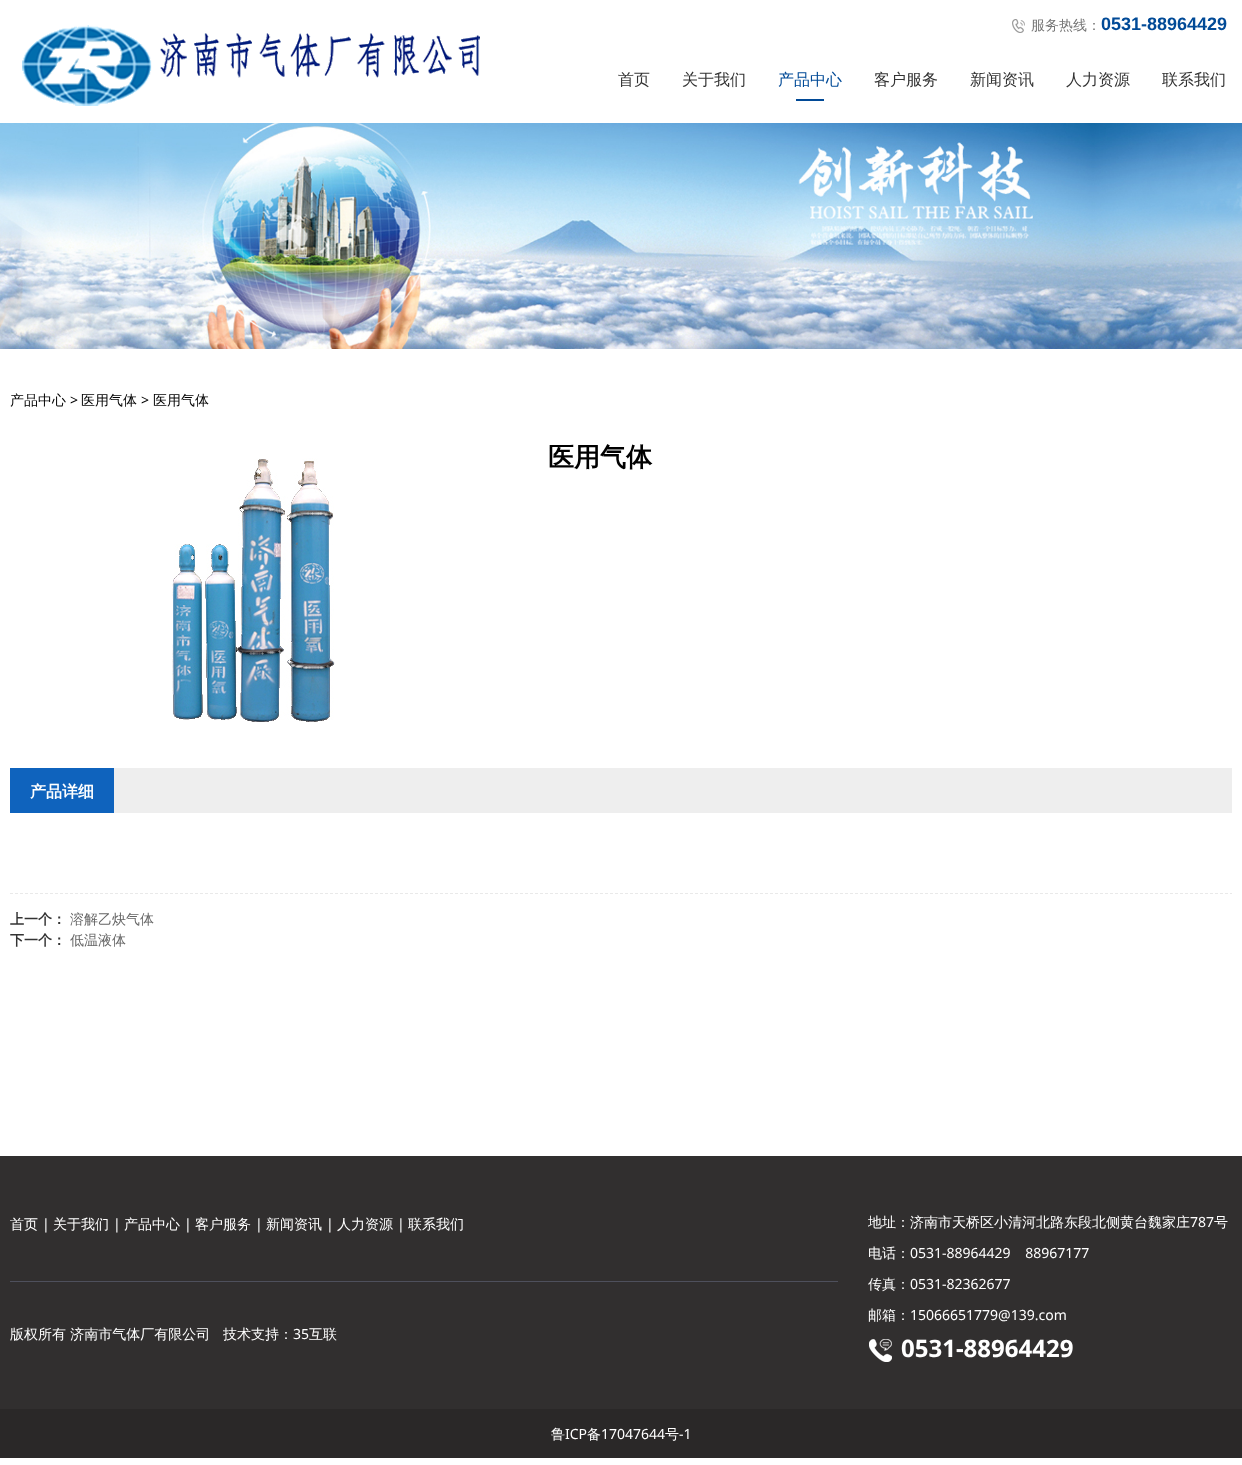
<?xml version="1.0" encoding="UTF-8"?>
<svg xmlns="http://www.w3.org/2000/svg" width="1242" height="1465">
    <rect width="100%" height="100%" fill="#FFFFFF"/>
    <image x="22" y="25" width="458" height="81" href="img_01.png"/>
    <image x="1012" y="19" width="13" height="14" href="img_02.png"/>
    <text x="1031" y="30" font-family="WenQuanYi Zen Hei" font-size="14" font-weight="500" fill="#777777">服务热线：</text>
    <text x="1101" y="30" font-family="Liberation Sans" font-size="18" font-weight="700" fill="#014A97">0531-88964429</text>
    <text x="618" y="85" font-family="WenQuanYi Zen Hei" font-size="16" font-weight="500" fill="#333333">首页</text>
    <text x="682" y="85" font-family="WenQuanYi Zen Hei" font-size="16" font-weight="500" fill="#333333">关于我们</text>
    <text x="778" y="85" font-family="WenQuanYi Zen Hei" font-size="16" font-weight="500" fill="#014A97">产品中心</text>
    <rect x="796" y="99" width="28" height="2" fill="#014A97"/>
    <text x="874" y="85" font-family="WenQuanYi Zen Hei" font-size="16" font-weight="500" fill="#333333">客户服务</text>
    <text x="970" y="85" font-family="WenQuanYi Zen Hei" font-size="16" font-weight="500" fill="#333333">新闻资讯</text>
    <text x="1066" y="85" font-family="WenQuanYi Zen Hei" font-size="16" font-weight="500" fill="#333333">人力资源</text>
    <text x="1162" y="85" font-family="WenQuanYi Zen Hei" font-size="16" font-weight="500" fill="#333333">联系我们</text>
    <image x="0" y="123" width="1242" height="226" href="img_03.png"/>
    <text x="10" y="405" font-family="WenQuanYi Zen Hei" font-size="14" font-weight="500" fill="#000000">产品中心</text>
    <text x="70" y="405" font-family="Noto Sans" font-size="14" fill="#000000">&gt;</text>
    <text x="81" y="405" font-family="WenQuanYi Zen Hei" font-size="14" font-weight="500" fill="#000000">医用气体</text>
    <text x="141" y="405" font-family="Noto Sans" font-size="14" fill="#000000">&gt;</text>
    <text x="153" y="405" font-family="WenQuanYi Zen Hei" font-size="14" font-weight="500" fill="#000000">医用气体</text>
    <image x="172" y="458" width="163" height="264" href="img_04.png"/>
    <text x="548" y="466" font-family="WenQuanYi Zen Hei" font-size="26" font-weight="700" fill="#000000">医用气体</text>
    <rect x="114" y="768" width="1118" height="45" fill="#EEEEEE"/>
    <rect x="10" y="768" width="104" height="45" fill="#0F63BD"/>
    <text x="30" y="797" font-family="WenQuanYi Zen Hei" font-size="16" font-weight="700" fill="#FFFFFF">产品详细</text>
    <path d="M 10 893.5 H 1232" fill="none" stroke="#E9E9E9" stroke-dasharray="3 2"/>
    <text x="10" y="924" font-family="WenQuanYi Zen Hei" font-size="14" font-weight="700" fill="#333333">上一个：</text>
    <text x="70" y="924" font-family="WenQuanYi Zen Hei" font-size="14" font-weight="500" fill="#666666">溶解乙炔气体</text>
    <text x="10" y="945" font-family="WenQuanYi Zen Hei" font-size="14" font-weight="700" fill="#333333">下一个：</text>
    <text x="70" y="945" font-family="WenQuanYi Zen Hei" font-size="14" font-weight="500" fill="#666666">低温液体</text>
    <rect x="0" y="1156" width="1242" height="253" fill="#312F2F"/>
    <text x="10" y="1229" font-family="WenQuanYi Zen Hei" font-size="14" font-weight="500" fill="#FFFFFF">首页</text>
    <text x="42" y="1229" font-family="Noto Sans" font-size="14" fill="#FFFFFF">|</text>
    <text x="53" y="1229" font-family="WenQuanYi Zen Hei" font-size="14" font-weight="500" fill="#FFFFFF">关于我们</text>
    <text x="113" y="1229" font-family="Noto Sans" font-size="14" fill="#FFFFFF">|</text>
    <text x="124" y="1229" font-family="WenQuanYi Zen Hei" font-size="14" font-weight="500" fill="#FFFFFF">产品中心</text>
    <text x="184" y="1229" font-family="Noto Sans" font-size="14" fill="#FFFFFF">|</text>
    <text x="195" y="1229" font-family="WenQuanYi Zen Hei" font-size="14" font-weight="500" fill="#FFFFFF">客户服务</text>
    <text x="255" y="1229" font-family="Noto Sans" font-size="14" fill="#FFFFFF">|</text>
    <text x="266" y="1229" font-family="WenQuanYi Zen Hei" font-size="14" font-weight="500" fill="#FFFFFF">新闻资讯</text>
    <text x="326" y="1229" font-family="Noto Sans" font-size="14" fill="#FFFFFF">|</text>
    <text x="337" y="1229" font-family="WenQuanYi Zen Hei" font-size="14" font-weight="500" fill="#FFFFFF">人力资源</text>
    <text x="397" y="1229" font-family="Noto Sans" font-size="14" fill="#FFFFFF">|</text>
    <text x="408" y="1229" font-family="WenQuanYi Zen Hei" font-size="14" font-weight="500" fill="#FFFFFF">联系我们</text>
    <rect x="10" y="1281" width="828" height="1" fill="#4E505C"/>
    <text x="10" y="1339" font-family="WenQuanYi Zen Hei" font-size="14" font-weight="500" fill="#FFFFFF">版权所有 济南市气体厂有限公司</text>
    <text x="223" y="1339" font-family="WenQuanYi Zen Hei" font-size="14" font-weight="500" fill="#FFFFFF">技术支持：</text>
    <text x="293" y="1339" font-family="Noto Sans" font-size="14" fill="#FFFFFF">35</text>
    <text x="309" y="1339" font-family="WenQuanYi Zen Hei" font-size="14" font-weight="500" fill="#FFFFFF">互联</text>
    <text x="868" y="1227" font-family="WenQuanYi Zen Hei" font-size="14" font-weight="500" fill="#FFFFFF">地址：济南市天桥区小清河北路东段北侧黄台魏家庄</text>
    <text x="1190" y="1227" font-family="Noto Sans" font-size="14" fill="#FFFFFF">787</text>
    <text x="1214" y="1227" font-family="WenQuanYi Zen Hei" font-size="14" font-weight="500" fill="#FFFFFF">号</text>
    <text x="868" y="1258" font-family="WenQuanYi Zen Hei" font-size="14" font-weight="500" fill="#FFFFFF">电话：</text>
    <text x="910" y="1258" font-family="Noto Sans" font-size="14" fill="#FFFFFF" xml:space="preserve">0531-88964429    88967177</text>
    <text x="868" y="1289" font-family="WenQuanYi Zen Hei" font-size="14" font-weight="500" fill="#FFFFFF">传真：</text>
    <text x="910" y="1289" font-family="Noto Sans" font-size="14" fill="#FFFFFF">0531-82362677</text>
    <text x="868" y="1320" font-family="WenQuanYi Zen Hei" font-size="14" font-weight="500" fill="#FFFFFF">邮箱：</text>
    <text x="910" y="1320" font-family="Noto Sans" font-size="14" fill="#FFFFFF">15066651779@139.com</text>
    <image x="869" y="1339" width="23" height="23" href="img_05.png"/>
    <text x="901" y="1357" font-family="Noto Sans" font-size="24" font-weight="700" fill="#FFFFFF">0531-88964429</text>
    <rect x="0" y="1409" width="1242" height="49" fill="#2A2828"/>
    <text x="551" y="1439" font-family="WenQuanYi Zen Hei" font-size="14" font-weight="500" fill="#FFFFFF">鲁</text>
    <text x="565" y="1439" font-family="Noto Sans" font-size="14" fill="#FFFFFF">ICP</text>
    <text x="587" y="1439" font-family="WenQuanYi Zen Hei" font-size="14" font-weight="500" fill="#FFFFFF">备</text>
    <text x="601" y="1439" font-family="Noto Sans" font-size="14" fill="#FFFFFF">17047644</text>
    <text x="665" y="1439" font-family="WenQuanYi Zen Hei" font-size="14" font-weight="500" fill="#FFFFFF">号</text>
    <text x="679" y="1439" font-family="Noto Sans" font-size="14" fill="#FFFFFF">-1</text>
</svg>
